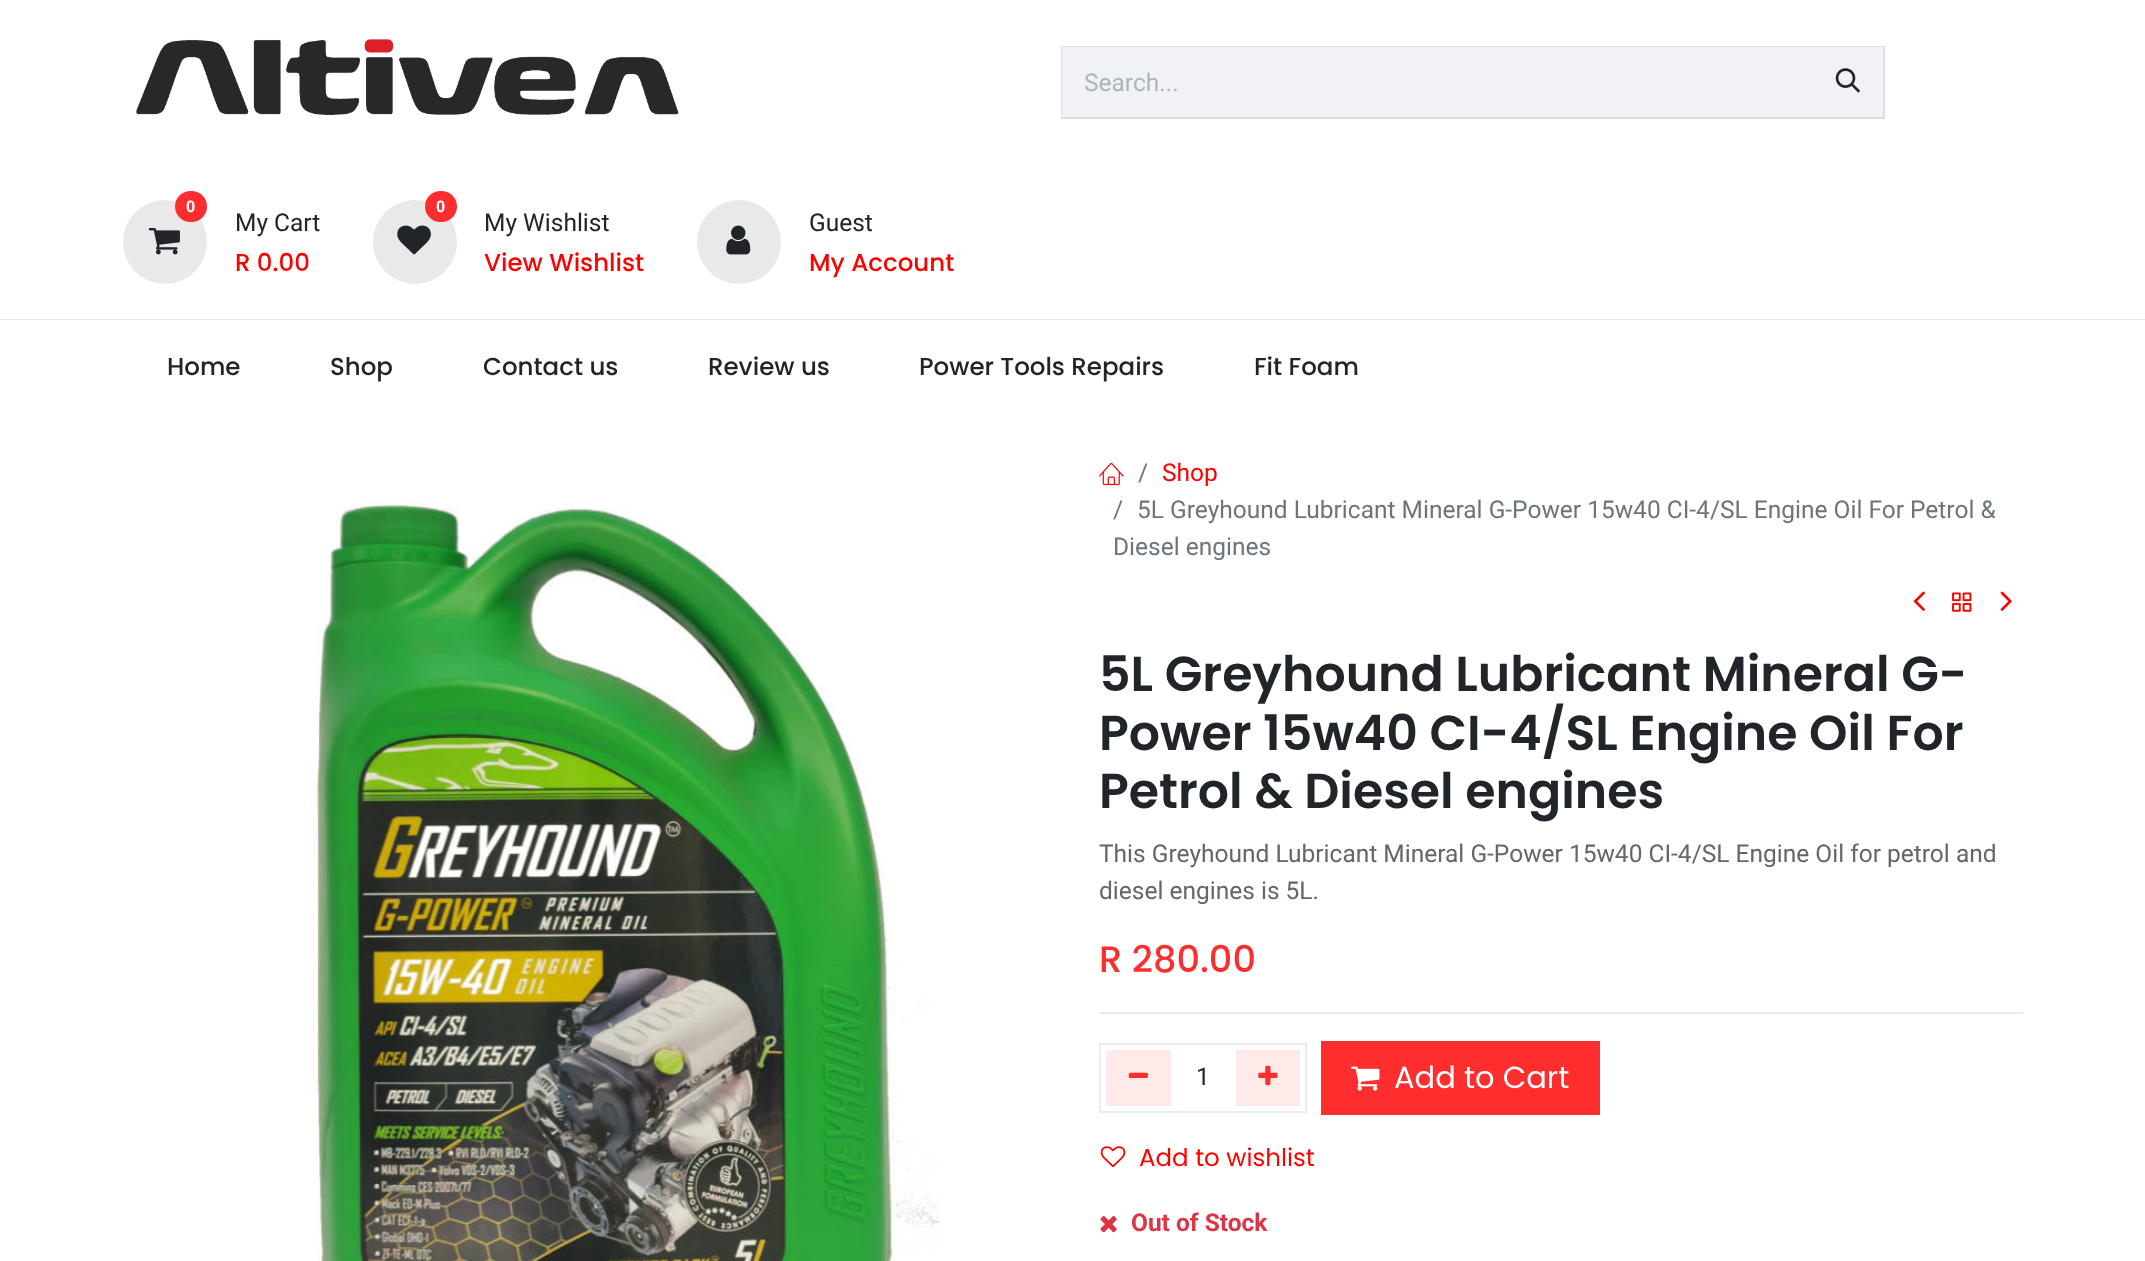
<?xml version="1.0" encoding="UTF-8"?>
<svg xmlns="http://www.w3.org/2000/svg" width="2145" height="1261">
    <rect width="100%" height="100%" fill="#FFFFFF"/>
    <rect x="0" y="319" width="2145" height="1" fill="#E4E5E5"/>
    <image x="136" y="39" width="543" height="76" href="img_01.png"/>
    <rect x="1062" y="47" width="822" height="71" fill="none" stroke="#DEDEDF" stroke-width="2"/>
    <rect x="1062" y="47" width="821" height="70" fill="#F0F2F5"/>
    <text x="1084" y="91" font-family="Roboto" font-size="24.5" fill="#ADB5BD">Search...</text>
    <image x="1835" y="68" width="26" height="25" href="img_02.png"/>
    <circle cx="165" cy="242" r="42" fill="#E9E9EA"/>
    <image x="148" y="228" width="32" height="27" href="img_03.png"/>
    <rect x="175" y="191" width="32" height="31" rx="15.5" fill="#FF2E2E"/>
    <text x="186" y="212" font-family="Roboto" font-size="16" font-weight="700" fill="#FFFFFF">0</text>
    <text x="235" y="231" font-family="Roboto" font-size="24.5" fill="#212529">My Cart</text>
    <text x="235" y="271" font-family="Poppins" font-size="24.5" font-weight="500" fill="#FF0000">R 0.00</text>
    <circle cx="415" cy="242" r="42" fill="#E9E9EA"/>
    <image x="397" y="225" width="34" height="30" href="img_04.png"/>
    <rect x="425" y="191" width="32" height="31" rx="15.5" fill="#FF2E2E"/>
    <text x="436" y="212" font-family="Roboto" font-size="16" font-weight="700" fill="#FFFFFF">0</text>
    <text x="484" y="231" font-family="Roboto" font-size="24.5" fill="#212529">My Wishlist</text>
    <text x="484" y="271" font-family="Poppins" font-size="24.5" font-weight="500" fill="#FF0000">View Wishlist</text>
    <circle cx="739" cy="242" r="42" fill="#E9E9EA"/>
    <image x="726" y="225" width="25" height="30" href="img_05.png"/>
    <text x="809" y="231" font-family="Roboto" font-size="24.5" fill="#212529">Guest</text>
    <text x="809" y="271" font-family="Poppins" font-size="24.5" font-weight="500" fill="#FF0000">My Account</text>
    <text x="167" y="375" font-family="Poppins" font-size="24.5" font-weight="500" fill="#212529">Home</text>
    <text x="330" y="375" font-family="Poppins" font-size="24.5" font-weight="500" fill="#212529">Shop</text>
    <text x="483" y="375" font-family="Poppins" font-size="24.5" font-weight="500" fill="#212529">Contact us</text>
    <text x="708" y="375" font-family="Poppins" font-size="24.5" font-weight="500" fill="#212529">Review us</text>
    <text x="919" y="375" font-family="Poppins" font-size="24.5" font-weight="500" fill="#212529">Power Tools Repairs</text>
    <text x="1254" y="375" font-family="Poppins" font-size="24.5" font-weight="500" fill="#212529">Fit Foam</text>
    <image x="309" y="500" width="631" height="761" href="img_06.png"/>
    <image x="1099" y="462" width="25" height="24" href="img_07.png"/>
    <text x="1138" y="481" font-family="Roboto" font-size="24.5" fill="#6C757D">/</text>
    <text x="1162" y="481" font-family="Roboto" font-size="24.5" fill="#FF0000">Shop</text>
    <text x="1113" y="518" font-family="Roboto" font-size="24.5" fill="#6C757D">/</text>
    <text x="1137" y="518" font-family="Roboto" font-size="24.5" fill="#6C757D">5L Greyhound Lubricant Mineral G-Power 15w40 CI-4/SL Engine Oil For Petrol &amp;</text>
    <text x="1113" y="555" font-family="Roboto" font-size="24.5" fill="#6C757D">Diesel engines</text>
    <image x="1913" y="591" width="12" height="20" href="img_08.png"/>
    <image x="1952" y="592" width="20" height="20" href="img_09.png"/>
    <image x="2000" y="591" width="12" height="20" href="img_10.png"/>
    <text font-family="Poppins" font-size="49" font-weight="600" fill="#212529">
        <tspan x="1099" y="691">5L Greyhound Lubricant Mineral G-</tspan>
        <tspan x="1099" y="750">Power 15w40 CI-4/SL Engine Oil For</tspan>
        <tspan x="1099" y="808">Petrol &amp; Diesel engines</tspan>
    </text>
    <text font-family="Roboto" font-size="24.5" fill="#646669">
        <tspan x="1099" y="862">This Greyhound Lubricant Mineral G-Power 15w40 CI-4/SL Engine Oil for petrol and</tspan>
        <tspan x="1099" y="899">diesel engines is 5L.</tspan>
    </text>
    <text x="1099" y="972" font-family="Poppins" font-size="36.75" font-weight="500" fill="#FF2E2E">R 280.00</text>
    <rect x="1099" y="1012" width="924" height="2" fill="#E9EAEA"/>
    <rect x="1100" y="1044" width="206" height="68" fill="none" stroke="#E9ECEF" stroke-width="2"/>
    <rect x="1106" y="1050" width="65" height="56" fill="#FFEAEA"/>
    <image x="1128" y="1072" width="20" height="6" href="img_11.png"/>
    <text x="1196" y="1085" font-family="Roboto" font-size="24.5" fill="#212529">1</text>
    <rect x="1236" y="1050" width="64" height="56" fill="#FFEAEA"/>
    <image x="1258" y="1065" width="20" height="20" href="img_12.png"/>
    <rect x="1321" y="1041" width="279" height="74" fill="#FF2E2E"/>
    <image x="1351" y="1066" width="29" height="25" href="img_13.png"/>
    <text x="1394" y="1088" font-family="Poppins" font-size="30.5" fill="#FFFFFF">Add to Cart</text>
    <image x="1100" y="1146" width="26" height="22" href="img_14.png"/>
    <text x="1139" y="1166" font-family="Poppins" font-size="24.5" fill="#FF0000">Add to wishlist</text>
    <image x="1100" y="1216" width="17" height="17" href="img_15.png"/>
    <text x="1131" y="1231" font-family="Roboto" font-size="24.5" font-weight="700" fill="#DC3545">Out of Stock</text>
</svg>
